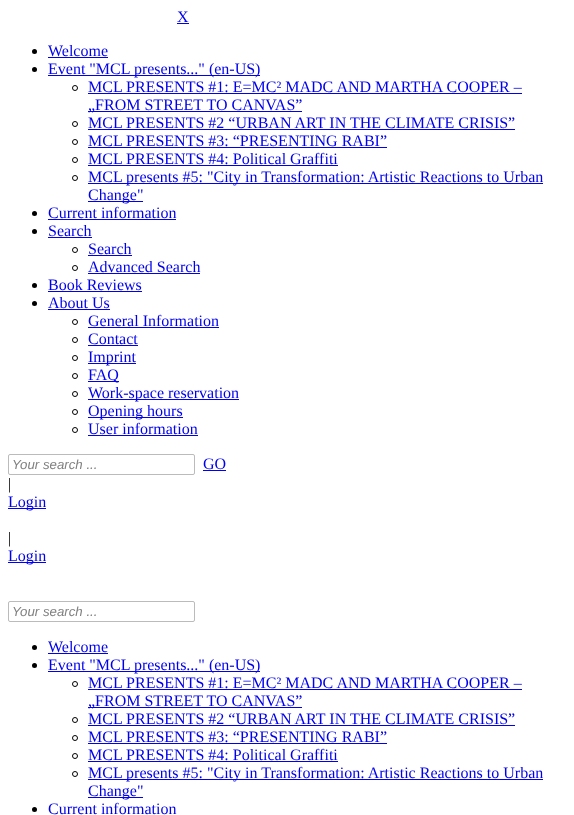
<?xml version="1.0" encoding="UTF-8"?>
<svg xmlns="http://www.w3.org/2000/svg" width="574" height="815">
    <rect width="100%" height="100%" fill="#FFFFFF"/>
    <text x="177" y="22" font-family="Liberation Serif" font-size="16" fill="#0000EE">X</text>
    <rect x="177" y="23" width="12" height="1" fill="#0000EE"/>
    <circle cx="34.5" cy="51.5" r="2.5" fill="#000000"/>
    <text x="48" y="56" font-family="Liberation Serif" font-size="16" fill="#0000EE">Welcome</text>
    <rect x="48" y="57" width="60" height="1" fill="#0000EE"/>
    <circle cx="34.5" cy="69.5" r="2.5" fill="#000000"/>
    <rect x="48" y="75" width="212" height="1" fill="#0000EE"/>
    <text x="48" y="74" font-family="Liberation Serif" font-size="16" fill="#0000EE">Event "MCL presents..." (en-US)</text>
    <circle cx="75" cy="88" r="2.5" fill="none" stroke="#000000"/>
    <text x="88" y="92" font-family="Liberation Serif" font-size="16" fill="#0000EE">MCL PRESENTS #1: E=MC² MADC AND MARTHA COOPER –</text>
    <rect x="88" y="93" width="434" height="1" fill="#0000EE"/>
    <rect x="88" y="111" width="214" height="1" fill="#0000EE"/>
    <text x="88" y="110" font-family="Liberation Serif" font-size="16" fill="#0000EE">„FROM STREET TO CANVAS”</text>
    <circle cx="75" cy="124" r="2.5" fill="none" stroke="#000000"/>
    <text x="88" y="128" font-family="Liberation Serif" font-size="16" fill="#0000EE">MCL PRESENTS #2 “URBAN ART IN THE CLIMATE CRISIS”</text>
    <rect x="88" y="129" width="427" height="1" fill="#0000EE"/>
    <circle cx="75" cy="142" r="2.5" fill="none" stroke="#000000"/>
    <text x="88" y="146" font-family="Liberation Serif" font-size="16" fill="#0000EE">MCL PRESENTS #3: “PRESENTING RABI”</text>
    <rect x="88" y="147" width="299" height="1" fill="#0000EE"/>
    <circle cx="75" cy="160" r="2.5" fill="none" stroke="#000000"/>
    <text x="88" y="164" font-family="Liberation Serif" font-size="16" fill="#0000EE">MCL PRESENTS #4: Political Graffiti</text>
    <rect x="88" y="165" width="250" height="1" fill="#0000EE"/>
    <circle cx="75" cy="178" r="2.5" fill="none" stroke="#000000"/>
    <rect x="88" y="183" width="455" height="1" fill="#0000EE"/>
    <text x="88" y="182" font-family="Liberation Serif" font-size="16" fill="#0000EE">MCL presents #5: "City in Transformation: Artistic Reactions to Urban</text>
    <rect x="88" y="201" width="55" height="1" fill="#0000EE"/>
    <text x="88" y="200" font-family="Liberation Serif" font-size="16" fill="#0000EE">Change"</text>
    <circle cx="34.5" cy="213.5" r="2.5" fill="#000000"/>
    <text x="48" y="218" font-family="Liberation Serif" font-size="16" fill="#0000EE">Current information</text>
    <rect x="48" y="219" width="128" height="1" fill="#0000EE"/>
    <circle cx="34.5" cy="231.5" r="2.5" fill="#000000"/>
    <text x="48" y="236" font-family="Liberation Serif" font-size="16" fill="#0000EE">Search</text>
    <rect x="48" y="237" width="44" height="1" fill="#0000EE"/>
    <circle cx="75" cy="250" r="2.5" fill="none" stroke="#000000"/>
    <text x="88" y="254" font-family="Liberation Serif" font-size="16" fill="#0000EE">Search</text>
    <rect x="88" y="255" width="44" height="1" fill="#0000EE"/>
    <circle cx="75" cy="268" r="2.5" fill="none" stroke="#000000"/>
    <text x="88" y="272" font-family="Liberation Serif" font-size="16" fill="#0000EE">Advanced Search</text>
    <rect x="88" y="273" width="112" height="1" fill="#0000EE"/>
    <circle cx="34.5" cy="285.5" r="2.5" fill="#000000"/>
    <text x="48" y="290" font-family="Liberation Serif" font-size="16" fill="#0000EE">Book Reviews</text>
    <rect x="48" y="291" width="94" height="1" fill="#0000EE"/>
    <circle cx="34.5" cy="303.5" r="2.5" fill="#000000"/>
    <text x="48" y="308" font-family="Liberation Serif" font-size="16" fill="#0000EE">About Us</text>
    <rect x="48" y="309" width="62" height="1" fill="#0000EE"/>
    <circle cx="75" cy="322" r="2.5" fill="none" stroke="#000000"/>
    <text x="88" y="326" font-family="Liberation Serif" font-size="16" fill="#0000EE">General Information</text>
    <rect x="88" y="327" width="131" height="1" fill="#0000EE"/>
    <circle cx="75" cy="340" r="2.5" fill="none" stroke="#000000"/>
    <text x="88" y="344" font-family="Liberation Serif" font-size="16" fill="#0000EE">Contact</text>
    <rect x="88" y="345" width="50" height="1" fill="#0000EE"/>
    <circle cx="75" cy="358" r="2.5" fill="none" stroke="#000000"/>
    <rect x="88" y="363" width="48" height="1" fill="#0000EE"/>
    <text x="88" y="362" font-family="Liberation Serif" font-size="16" fill="#0000EE">Imprint</text>
    <circle cx="75" cy="376" r="2.5" fill="none" stroke="#000000"/>
    <rect x="88" y="381" width="31" height="1" fill="#0000EE"/>
    <text x="88" y="380" font-family="Liberation Serif" font-size="16" fill="#0000EE">FAQ</text>
    <circle cx="75" cy="394" r="2.5" fill="none" stroke="#000000"/>
    <rect x="88" y="399" width="151" height="1" fill="#0000EE"/>
    <text x="88" y="398" font-family="Liberation Serif" font-size="16" fill="#0000EE">Work-space reservation</text>
    <circle cx="75" cy="412" r="2.5" fill="none" stroke="#000000"/>
    <rect x="88" y="417" width="95" height="1" fill="#0000EE"/>
    <text x="88" y="416" font-family="Liberation Serif" font-size="16" fill="#0000EE">Opening hours</text>
    <circle cx="75" cy="430" r="2.5" fill="none" stroke="#000000"/>
    <text x="88" y="434" font-family="Liberation Serif" font-size="16" fill="#0000EE">User information</text>
    <rect x="88" y="435" width="110" height="1" fill="#0000EE"/>
    <rect x="8.5" y="454.5" width="186" height="20" rx="1.5" fill="none" stroke="#BBBBBB"/>
    <text x="12" y="469" font-family="Liberation Sans" font-size="13.25" font-style="italic" fill="#808080">Your search ...</text>
    <text x="203" y="469" font-family="Liberation Serif" font-size="16" fill="#0000EE">GO</text>
    <rect x="203" y="470" width="23" height="1" fill="#0000EE"/>
    <text x="8" y="489" font-family="Liberation Serif" font-size="16" fill="#000000">|</text>
    <rect x="8" y="508" width="38" height="1" fill="#0000EE"/>
    <text x="8" y="507" font-family="Liberation Serif" font-size="16" fill="#0000EE">Login</text>
    <text x="8" y="543" font-family="Liberation Serif" font-size="16" fill="#000000">|</text>
    <rect x="8" y="562" width="38" height="1" fill="#0000EE"/>
    <text x="8" y="561" font-family="Liberation Serif" font-size="16" fill="#0000EE">Login</text>
    <rect x="8.5" y="601.5" width="186" height="20" rx="1.5" fill="none" stroke="#BBBBBB"/>
    <text x="12" y="616" font-family="Liberation Sans" font-size="13.25" font-style="italic" fill="#808080">Your search ...</text>
    <circle cx="34.5" cy="647.5" r="2.5" fill="#000000"/>
    <text x="48" y="652" font-family="Liberation Serif" font-size="16" fill="#0000EE">Welcome</text>
    <rect x="48" y="653" width="60" height="1" fill="#0000EE"/>
    <circle cx="34.5" cy="665.5" r="2.5" fill="#000000"/>
    <rect x="48" y="671" width="212" height="1" fill="#0000EE"/>
    <text x="48" y="670" font-family="Liberation Serif" font-size="16" fill="#0000EE">Event "MCL presents..." (en-US)</text>
    <circle cx="75" cy="684" r="2.5" fill="none" stroke="#000000"/>
    <text x="88" y="688" font-family="Liberation Serif" font-size="16" fill="#0000EE">MCL PRESENTS #1: E=MC² MADC AND MARTHA COOPER –</text>
    <rect x="88" y="689" width="434" height="1" fill="#0000EE"/>
    <rect x="88" y="707" width="214" height="1" fill="#0000EE"/>
    <text x="88" y="706" font-family="Liberation Serif" font-size="16" fill="#0000EE">„FROM STREET TO CANVAS”</text>
    <circle cx="75" cy="720" r="2.5" fill="none" stroke="#000000"/>
    <text x="88" y="724" font-family="Liberation Serif" font-size="16" fill="#0000EE">MCL PRESENTS #2 “URBAN ART IN THE CLIMATE CRISIS”</text>
    <rect x="88" y="725" width="427" height="1" fill="#0000EE"/>
    <circle cx="75" cy="738" r="2.5" fill="none" stroke="#000000"/>
    <text x="88" y="742" font-family="Liberation Serif" font-size="16" fill="#0000EE">MCL PRESENTS #3: “PRESENTING RABI”</text>
    <rect x="88" y="743" width="299" height="1" fill="#0000EE"/>
    <circle cx="75" cy="756" r="2.5" fill="none" stroke="#000000"/>
    <text x="88" y="760" font-family="Liberation Serif" font-size="16" fill="#0000EE">MCL PRESENTS #4: Political Graffiti</text>
    <rect x="88" y="761" width="250" height="1" fill="#0000EE"/>
    <circle cx="75" cy="774" r="2.5" fill="none" stroke="#000000"/>
    <rect x="88" y="779" width="455" height="1" fill="#0000EE"/>
    <text x="88" y="778" font-family="Liberation Serif" font-size="16" fill="#0000EE">MCL presents #5: "City in Transformation: Artistic Reactions to Urban</text>
    <rect x="88" y="797" width="55" height="1" fill="#0000EE"/>
    <text x="88" y="796" font-family="Liberation Serif" font-size="16" fill="#0000EE">Change"</text>
    <circle cx="34.5" cy="809.5" r="2.5" fill="#000000"/>
    <text x="48" y="814" font-family="Liberation Serif" font-size="16" fill="#0000EE">Current information</text>
</svg>
